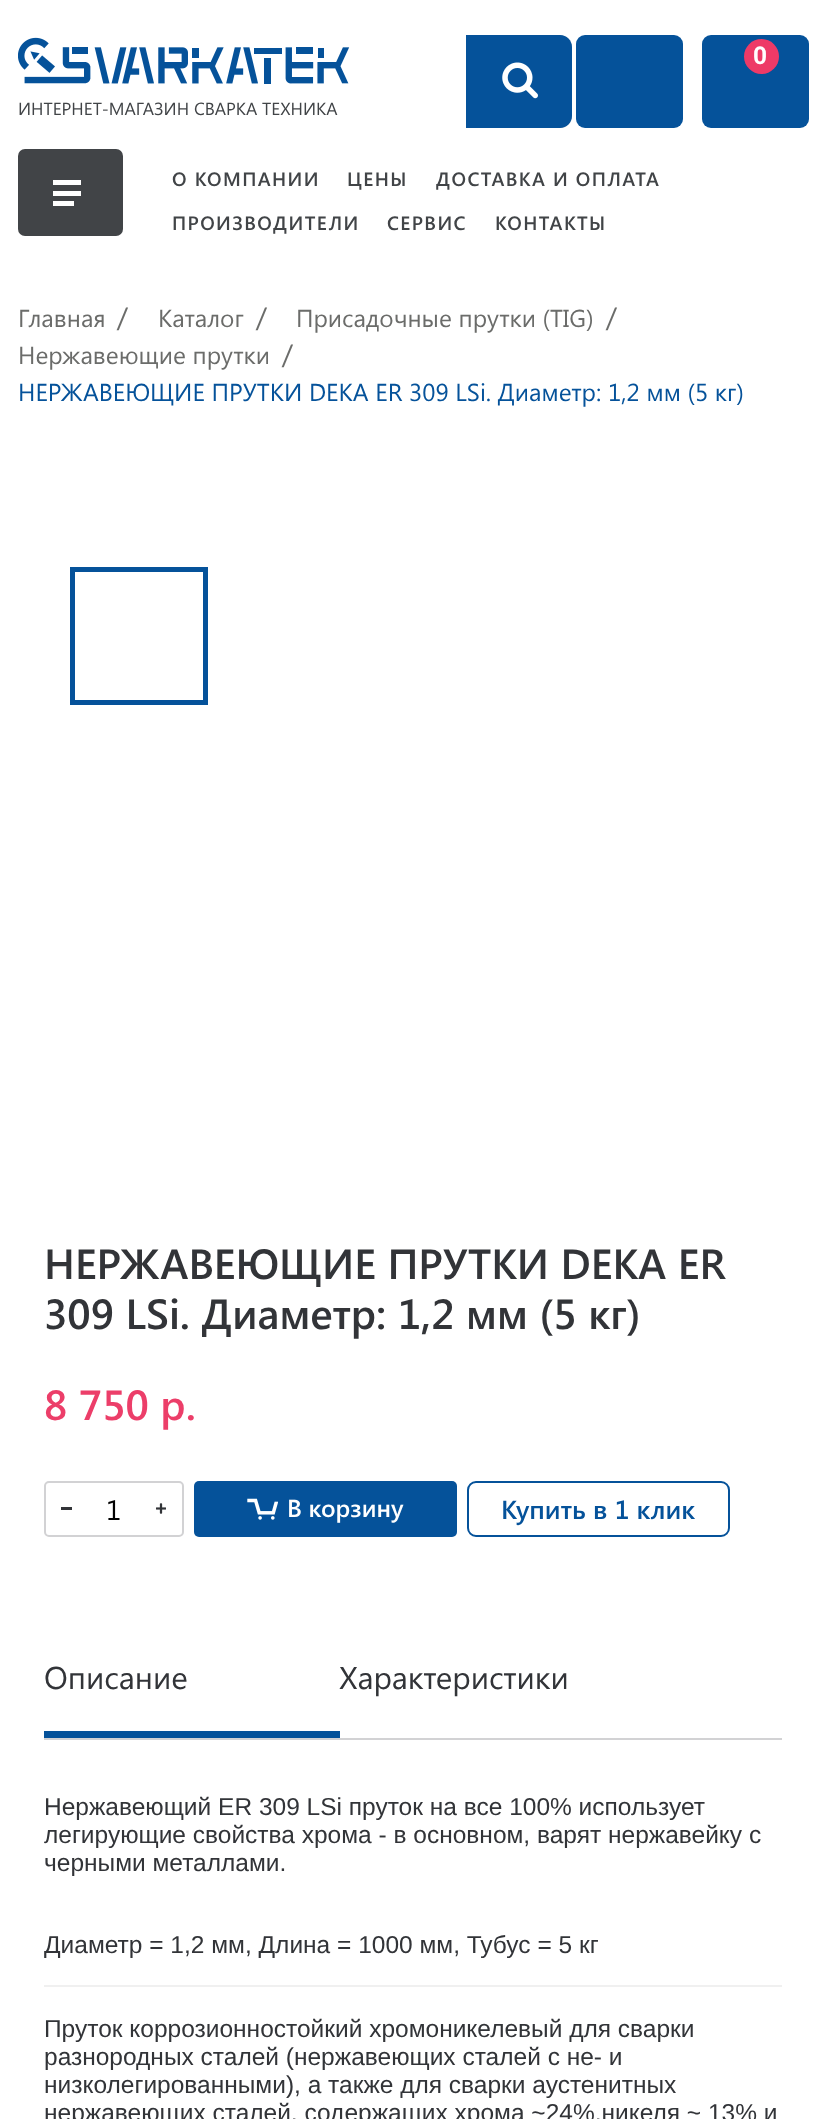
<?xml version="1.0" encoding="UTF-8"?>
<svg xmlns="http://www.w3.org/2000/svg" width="826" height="2119">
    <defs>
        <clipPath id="clip1"><rect x="44" y="1740" width="738" height="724"/></clipPath>
    </defs>
    <rect width="100%" height="100%" fill="#FFFFFF"/>
    <rect x="467" y="36" width="104" height="91" rx="11" fill="none" stroke="#D2D2D4" stroke-width="2"/>
    <path d="M 466 35 H 560 C 566.5 35 572 40.5 572 47 V 116 C 572 122.5 566.5 128 560 128 H 466 Z" fill="#05529A"/>
    <image x="502" y="62" width="36" height="37" href="img_01.png"/>
    <rect x="576" y="35" width="107" height="93" rx="9" fill="#05529A"/>
    <rect x="702" y="35" width="107" height="93" rx="9" fill="#05529A"/>
    <circle cx="761.5" cy="56.5" r="17.5" fill="#EE3A67"/>
    <text x="753" y="64" font-family="Roboto" font-size="24.5" font-weight="700" fill="#FFFFFF">0</text>
    <image x="18" y="37" width="332" height="47" href="img_02.png"/>
    <text x="18" y="115" font-family="Segoe UI" font-size="17.5" fill="#414447">ИНТЕРНЕТ-МАГАЗИН СВАРКА ТЕХНИКА</text>
    <rect x="18" y="149" width="105" height="87" rx="7" fill="#414447"/>
    <rect x="53" y="191" width="28" height="5" fill="#FFFFFF"/>
    <rect x="53" y="180" width="28" height="5" fill="#FFFFFF"/>
    <rect x="53" y="201" width="21" height="5" fill="#FFFFFF"/>
    <text x="172" y="186" font-family="Segoe UI" font-size="19.25" font-weight="600" letter-spacing="1.4" fill="#414447">О КОМПАНИИ</text>
    <text x="347" y="186" font-family="Segoe UI" font-size="19.25" font-weight="600" letter-spacing="1.4" fill="#414447">ЦЕНЫ</text>
    <text x="436" y="186" font-family="Segoe UI" font-size="19.25" font-weight="600" letter-spacing="1.4" fill="#414447">ДОСТАВКА И ОПЛАТА</text>
    <text x="172" y="230" font-family="Segoe UI" font-size="19.25" font-weight="600" letter-spacing="1.4" fill="#414447">ПРОИЗВОДИТЕЛИ</text>
    <text x="387" y="230" font-family="Segoe UI" font-size="19.25" font-weight="600" letter-spacing="1.4" fill="#414447">СЕРВИС</text>
    <text x="495" y="230" font-family="Segoe UI" font-size="19.25" font-weight="600" letter-spacing="1.4" fill="#414447">КОНТАКТЫ</text>
    <text x="18" y="327" font-family="Segoe UI" font-size="24.5" fill="#6B6C6A">Главная</text>
    <text x="117" y="327" font-family="Segoe UI" font-size="28" fill="#6B6C6A">/</text>
    <text x="158" y="327" font-family="Segoe UI" font-size="24.5" fill="#6B6C6A">Каталог</text>
    <text x="256" y="327" font-family="Segoe UI" font-size="28" fill="#6B6C6A">/</text>
    <text x="296" y="327" font-family="Segoe UI" font-size="24.5" fill="#6B6C6A">Присадочные прутки (TIG)</text>
    <text x="606" y="327" font-family="Segoe UI" font-size="28" fill="#6B6C6A">/</text>
    <text x="18" y="364" font-family="Segoe UI" font-size="24.5" fill="#6B6C6A">Нержавеющие прутки</text>
    <text x="282" y="364" font-family="Segoe UI" font-size="28" fill="#6B6C6A">/</text>
    <text x="18" y="401" font-family="Segoe UI" font-size="24.5" fill="#05529A">НЕРЖАВЕЮЩИЕ ПРУТКИ DEKA ER 309 LSi. Диаметр: 1,2 мм (5 кг)</text>
    <rect x="72.5" y="569.5" width="133" height="133" fill="none" stroke="#05529A" stroke-width="5"/>
    <text font-family="Segoe UI" font-size="42" font-weight="600" fill="#323438">
        <tspan x="44" y="1279">НЕРЖАВЕЮЩИЕ ПРУТКИ DEKA ER</tspan>
        <tspan x="44" y="1329">309 LSi. Диаметр: 1,2 мм (5 кг)</tspan>
    </text>
    <text x="44" y="1420" font-family="Segoe UI" font-size="42" font-weight="600" fill="#EC3E69">8 750 р.</text>
    <rect x="45" y="1482" width="138" height="54" rx="4" fill="none" stroke="#D2D2D4" stroke-width="2"/>
    <rect x="61" y="1507" width="11" height="3" fill="#323438"/>
    <text x="106" y="1520" font-family="Segoe UI" font-size="28" fill="#000000">1</text>
    <image x="156" y="1503" width="10" height="11" href="img_03.png"/>
    <rect x="194" y="1481" width="263" height="56" rx="5" fill="#05529A"/>
    <image x="247" y="1498" width="31" height="22" href="img_04.png"/>
    <text x="287" y="1517" font-family="Segoe UI" font-size="24.5" font-weight="600" fill="#FFFFFF">В корзину</text>
    <rect x="468" y="1482" width="261" height="54" rx="8" fill="none" stroke="#05529A" stroke-width="2"/>
    <text x="501" y="1519" font-family="Segoe UI" font-size="26.25" font-weight="600" fill="#05529A">Купить в 1 клик</text>
    <rect x="44" y="1738" width="738" height="2" fill="#D2D2D4"/>
    <rect x="44" y="1731" width="296" height="7" fill="#05529A"/>
    <text x="44" y="1689" font-family="Segoe UI" font-size="31.5" fill="#323438">Описание</text>
    <text x="339" y="1689" font-family="Segoe UI" font-size="31.5" fill="#323438">Характеристики</text>
    <text font-family="Liberation Sans" font-size="24.5" fill="#323438">
        <tspan x="44" y="1815">Нержавеющий ER 309 LSi пруток на все 100% использует</tspan>
        <tspan x="44" y="1843">легирующие свойства хрома - в основном, варят нержавейку с</tspan>
        <tspan x="44" y="1871">черными металлами.</tspan>
    </text>
    <rect x="44" y="1985" width="738" height="2" fill="#F0F0F0"/>
    <g clip-path="url(#clip1)">
        <text x="44" y="1953" font-family="Liberation Sans" font-size="24.5" fill="#323438">Диаметр = 1,2 мм, Длина = 1000 мм, Тубус = 5 кг</text>
    </g>
    <text font-family="Liberation Sans" font-size="24.5" fill="#323438">
        <tspan x="44" y="2037">Пруток коррозионностойкий хромоникелевый для сварки</tspan>
        <tspan x="44" y="2065">разнородных сталей (нержавеющих сталей c не- и</tspan>
        <tspan x="44" y="2093">низколегированными), а также для сварки аустенитных</tspan>
        <tspan x="44" y="2121">нержавеющих сталей, содержащих хрома ~24%,никеля ~ 13% и</tspan>
    </text>
</svg>
